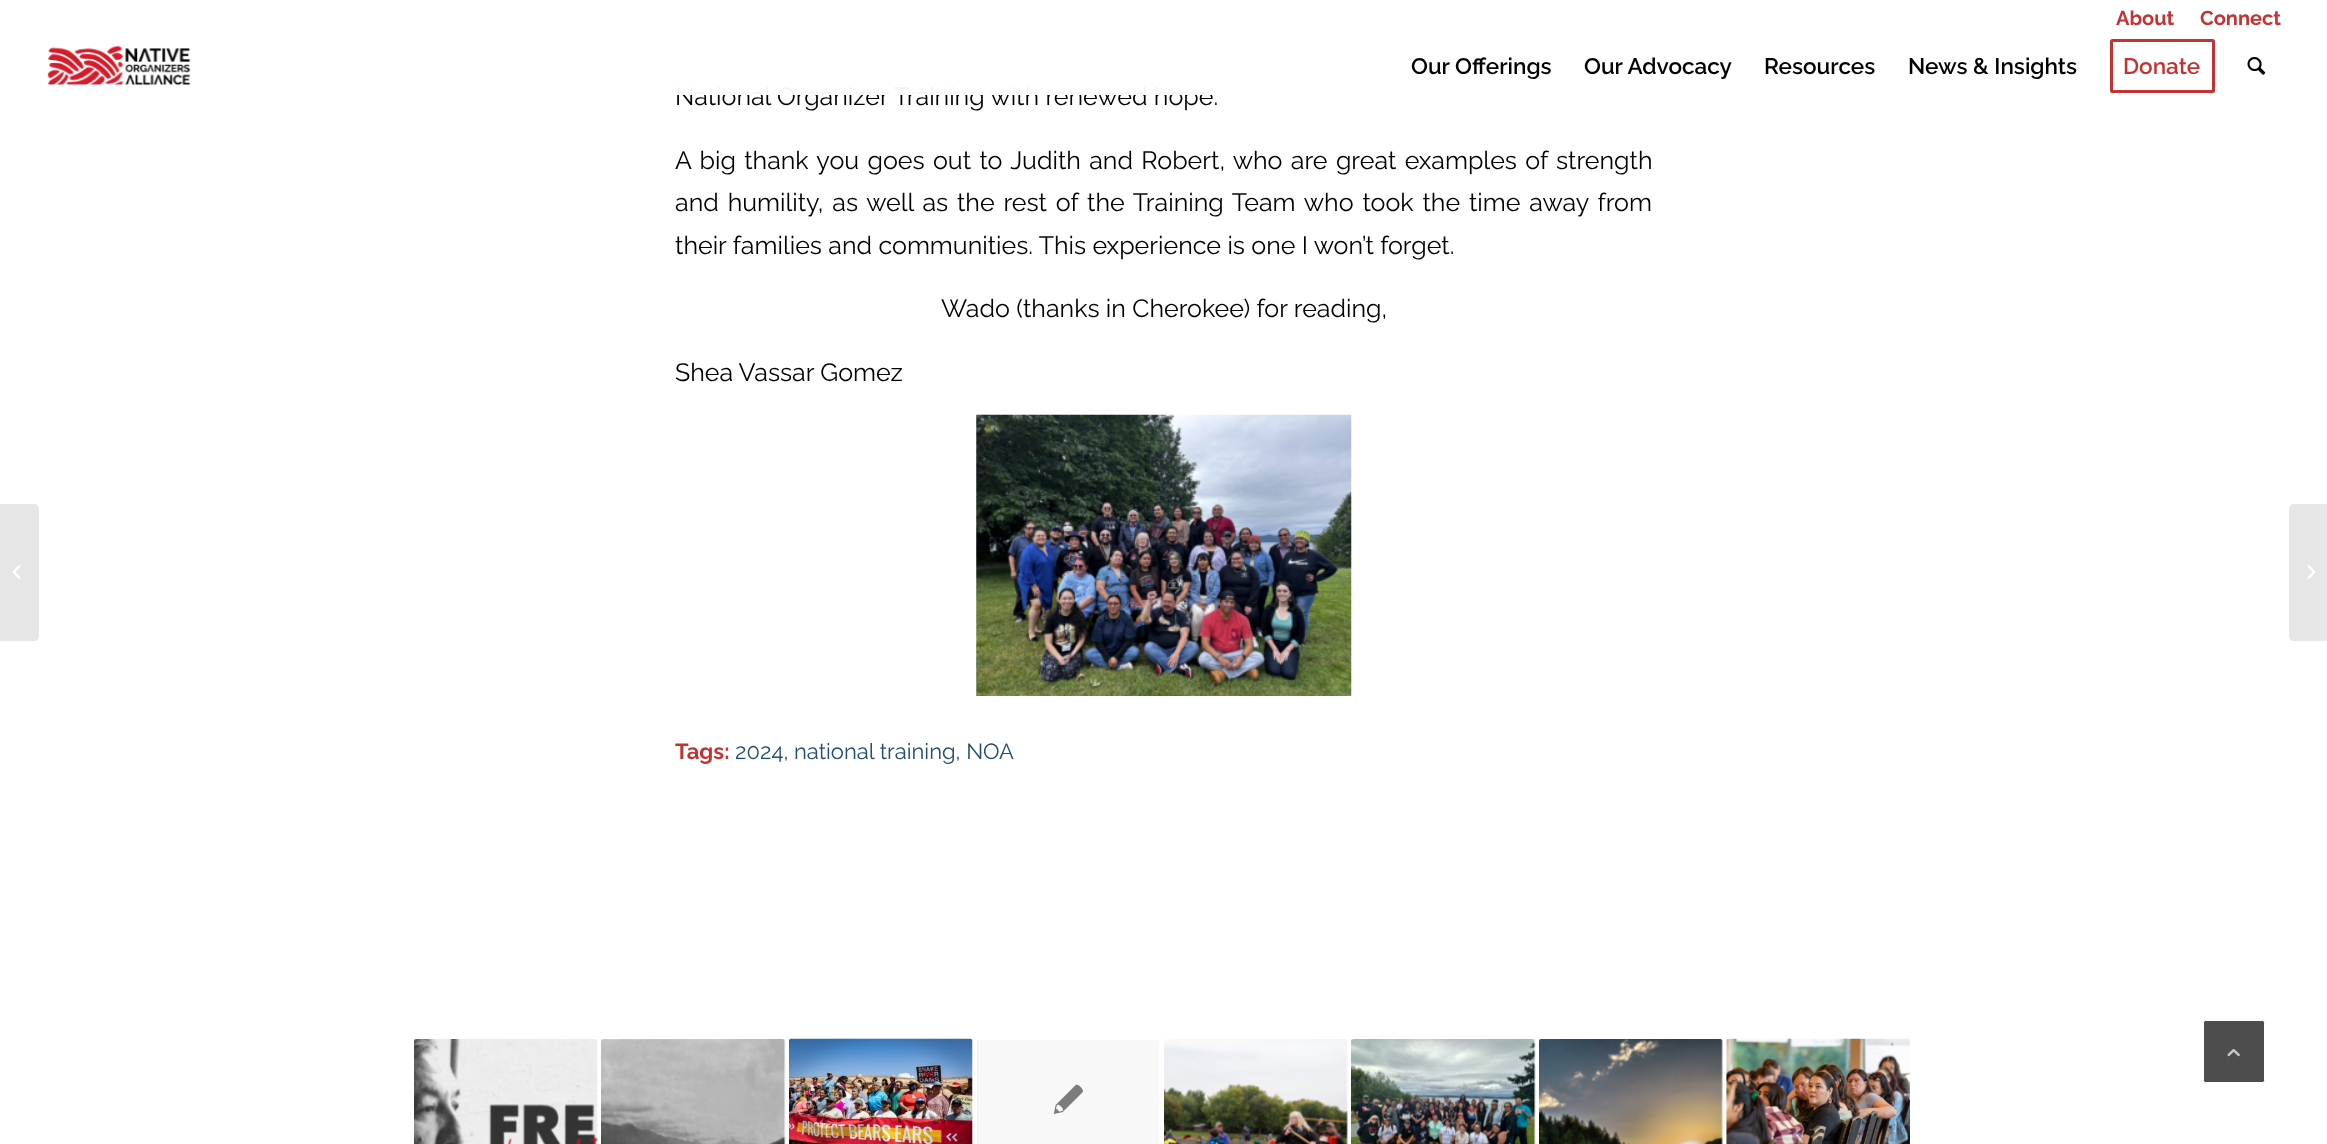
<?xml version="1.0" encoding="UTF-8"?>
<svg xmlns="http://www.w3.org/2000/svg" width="2327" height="1144">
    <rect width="100%" height="100%" fill="#FFFFFF"/>
    <text x="2116" y="25" font-family="Raleway" font-size="20" font-weight="700" fill="#C33333">About</text>
    <text x="2200" y="25" font-family="Raleway" font-size="20" font-weight="700" fill="#C33333">Connect</text>
    <text x="675" y="105" font-family="Raleway" font-size="25" fill="#000000">National Organizer Training with renewed hope.</text>
    <rect x="677" y="94" width="535" height="1" fill="#FFFFFF"/>
    <image x="47" y="45" width="144" height="41" href="img_01.png"/>
    <text x="1411" y="74" font-family="Raleway" font-size="22.5" font-weight="600" fill="#000000">Our Offerings</text>
    <text x="1584" y="74" font-family="Raleway" font-size="22.5" font-weight="600" fill="#000000">Our Advocacy</text>
    <text x="1764" y="74" font-family="Raleway" font-size="22.5" font-weight="600" fill="#000000">Resources</text>
    <text x="1908" y="74" font-family="Raleway" font-size="22.5" font-weight="600" fill="#000000">News &amp; Insights</text>
    <rect x="2111.5" y="40.5" width="102" height="51" rx="1" fill="none" stroke="#C33333" stroke-width="3"/>
    <text x="2123" y="74" font-family="Raleway" font-size="22.5" font-weight="600" fill="#C33333">Donate</text>
    <image x="2247" y="57" width="19" height="18" href="img_02.png"/>
    <rect x="677" y="86" width="534" height="8" fill="#FFFFFF" fill-opacity="0.95"/>
    <path d="M 0 504 H 34 C 37 504 39 506 39 509 V 636 C 39 639 37 641 34 641 H 0 Z" fill="#E6E6E6"/>
    <image x="12" y="565" width="9" height="14" href="img_03.png"/>
    <text font-family="Raleway" font-size="25" fill="#000000">
        <tspan x="675" y="169" word-spacing="2">A big thank you goes out to Judith and Robert, who are great examples of strength</tspan>
        <tspan x="675" y="211" word-spacing="2.5">and humility, as well as the rest of the Training Team who took the time away from</tspan>
        <tspan x="675" y="254">their families and communities. This experience is one I won’t forget.</tspan>
    </text>
    <text x="941" y="317" font-family="Raleway" font-size="25" fill="#000000">Wado (thanks in Cherokee) for reading,</text>
    <text x="675" y="381" font-family="Raleway" font-size="25" fill="#000000">Shea Vassar Gomez</text>
    <image x="976" y="414" width="376" height="282" href="img_04.png"/>
    <text x="675" y="759" font-family="Raleway" font-size="22" font-weight="700" fill="#C33333">Tags:</text>
    <text x="735" y="759" font-family="Raleway" font-size="22" fill="#214D6E">2024, national training, NOA</text>
    <image x="414" y="1039" width="184" height="105" href="img_05.png"/>
    <image x="601" y="1039" width="185" height="105" href="img_06.png"/>
    <image x="789" y="1038" width="184" height="106" href="img_07.png"/>
    <rect x="976.5" y="1039.5" width="183" height="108" rx="2" fill="#F2F1F1" stroke="#FFFFFF"/>
    <rect x="978" y="1040" width="181" height="104" fill="#FFFFFF" fill-opacity="0.5"/>
    <image x="1053" y="1084" width="30" height="30" href="img_08.png"/>
    <image x="1164" y="1039" width="184" height="105" href="img_09.png"/>
    <image x="1351" y="1039" width="185" height="105" href="img_10.png"/>
    <image x="1539" y="1039" width="184" height="105" href="img_11.png"/>
    <image x="1726" y="1038" width="184" height="106" href="img_12.png"/>
    <path d="M 2294 504 H 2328 V 641 H 2294 C 2291 641 2289 639 2289 636 V 509 C 2289 506 2291 504 2294 504 Z" fill="#E6E6E6"/>
    <image x="2307" y="565" width="9" height="14" href="img_13.png"/>
    <rect x="2203.5" y="1020.5" width="61" height="62" rx="2" fill="#4D4D4D" stroke="#FFFFFF"/>
    <image x="2227" y="1049" width="13" height="8" href="img_14.png"/>
</svg>
